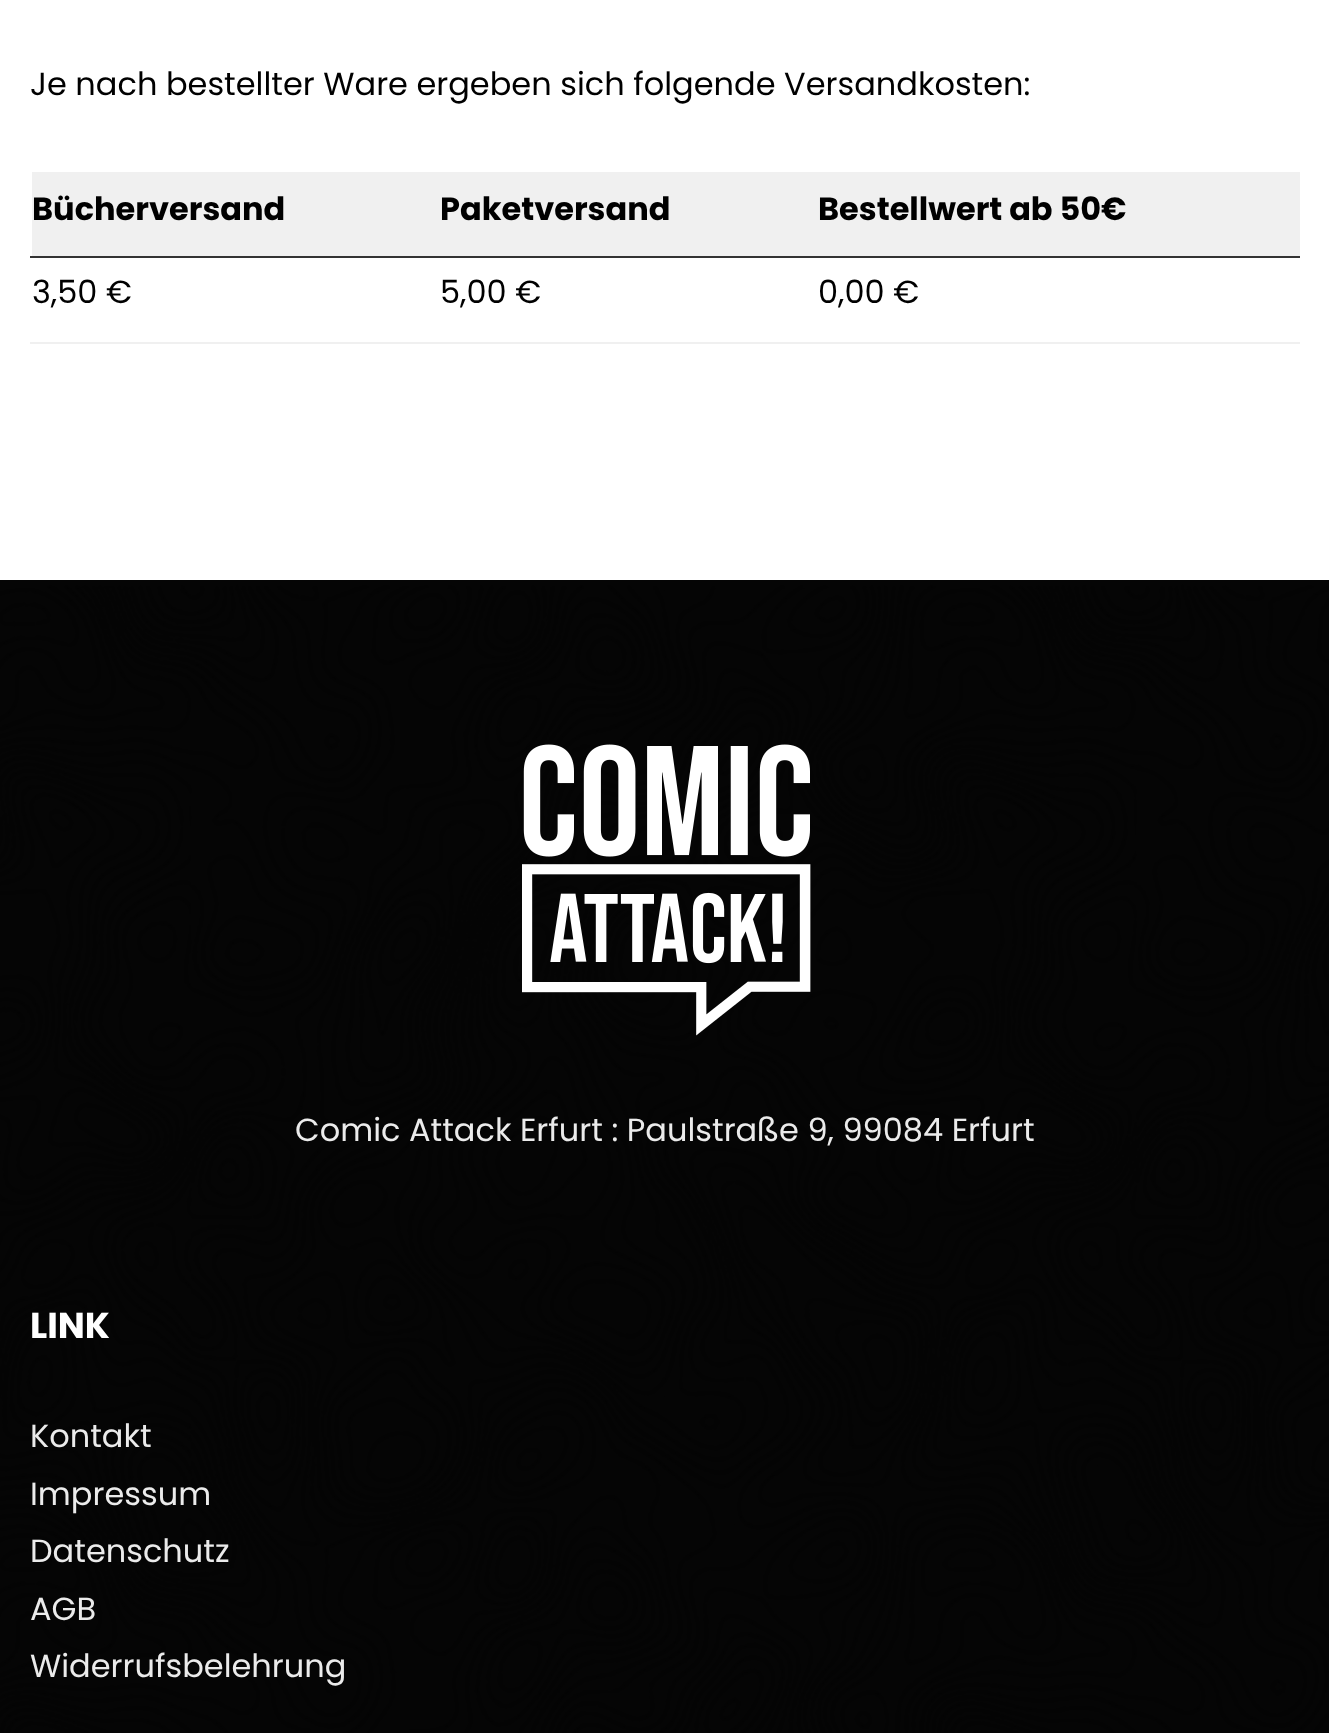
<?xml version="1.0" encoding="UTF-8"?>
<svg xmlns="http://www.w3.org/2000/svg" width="1329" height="1733">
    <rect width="100%" height="100%" fill="#FFFFFF"/>
    <text x="30" y="95" font-family="Poppins" font-size="32" fill="#000000">Je nach bestellter Ware ergeben sich folgende Versandkosten:</text>
    <rect x="30" y="342" width="1270" height="2" fill="#F0F0F0"/>
    <rect x="32" y="172" width="1268" height="84" fill="#F0F0F0"/>
    <rect x="30" y="256" width="1270" height="2" fill="#333333"/>
    <text x="32" y="220" font-family="Poppins" font-size="32" font-weight="700" fill="#000000">Bücherversand</text>
    <text x="440" y="220" font-family="Poppins" font-size="32" font-weight="700" fill="#000000">Paketversand</text>
    <text x="818" y="220" font-family="Poppins" font-size="32" font-weight="700" fill="#000000">Bestellwert ab 50€</text>
    <text x="32" y="303" font-family="Poppins" font-size="32" fill="#000000">3,50 €</text>
    <text x="440" y="303" font-family="Poppins" font-size="32" fill="#000000">5,00 €</text>
    <text x="818" y="303" font-family="Poppins" font-size="32" fill="#000000">0,00 €</text>
    <image x="0" y="580" width="1329" height="1153" href="img_01.png"/>
    <image x="522" y="744" width="289" height="292" href="img_02.png"/>
    <text x="295" y="1141" font-family="Poppins" font-size="32" fill="#EBEBEB">Comic Attack Erfurt : Paulstraße 9, 99084 Erfurt</text>
    <text x="30" y="1338" font-family="Poppins" font-size="36" font-weight="700" fill="#FFFFFF">LINK</text>
    <text font-family="Poppins" font-size="32" fill="#EBEBEB">
        <tspan x="30" y="1447">Kontakt</tspan>
        <tspan x="30" y="1505">Impressum</tspan>
        <tspan x="30" y="1562">Datenschutz</tspan>
        <tspan x="30" y="1620">AGB</tspan>
        <tspan x="30" y="1677">Widerrufsbelehrung</tspan>
    </text>
</svg>
